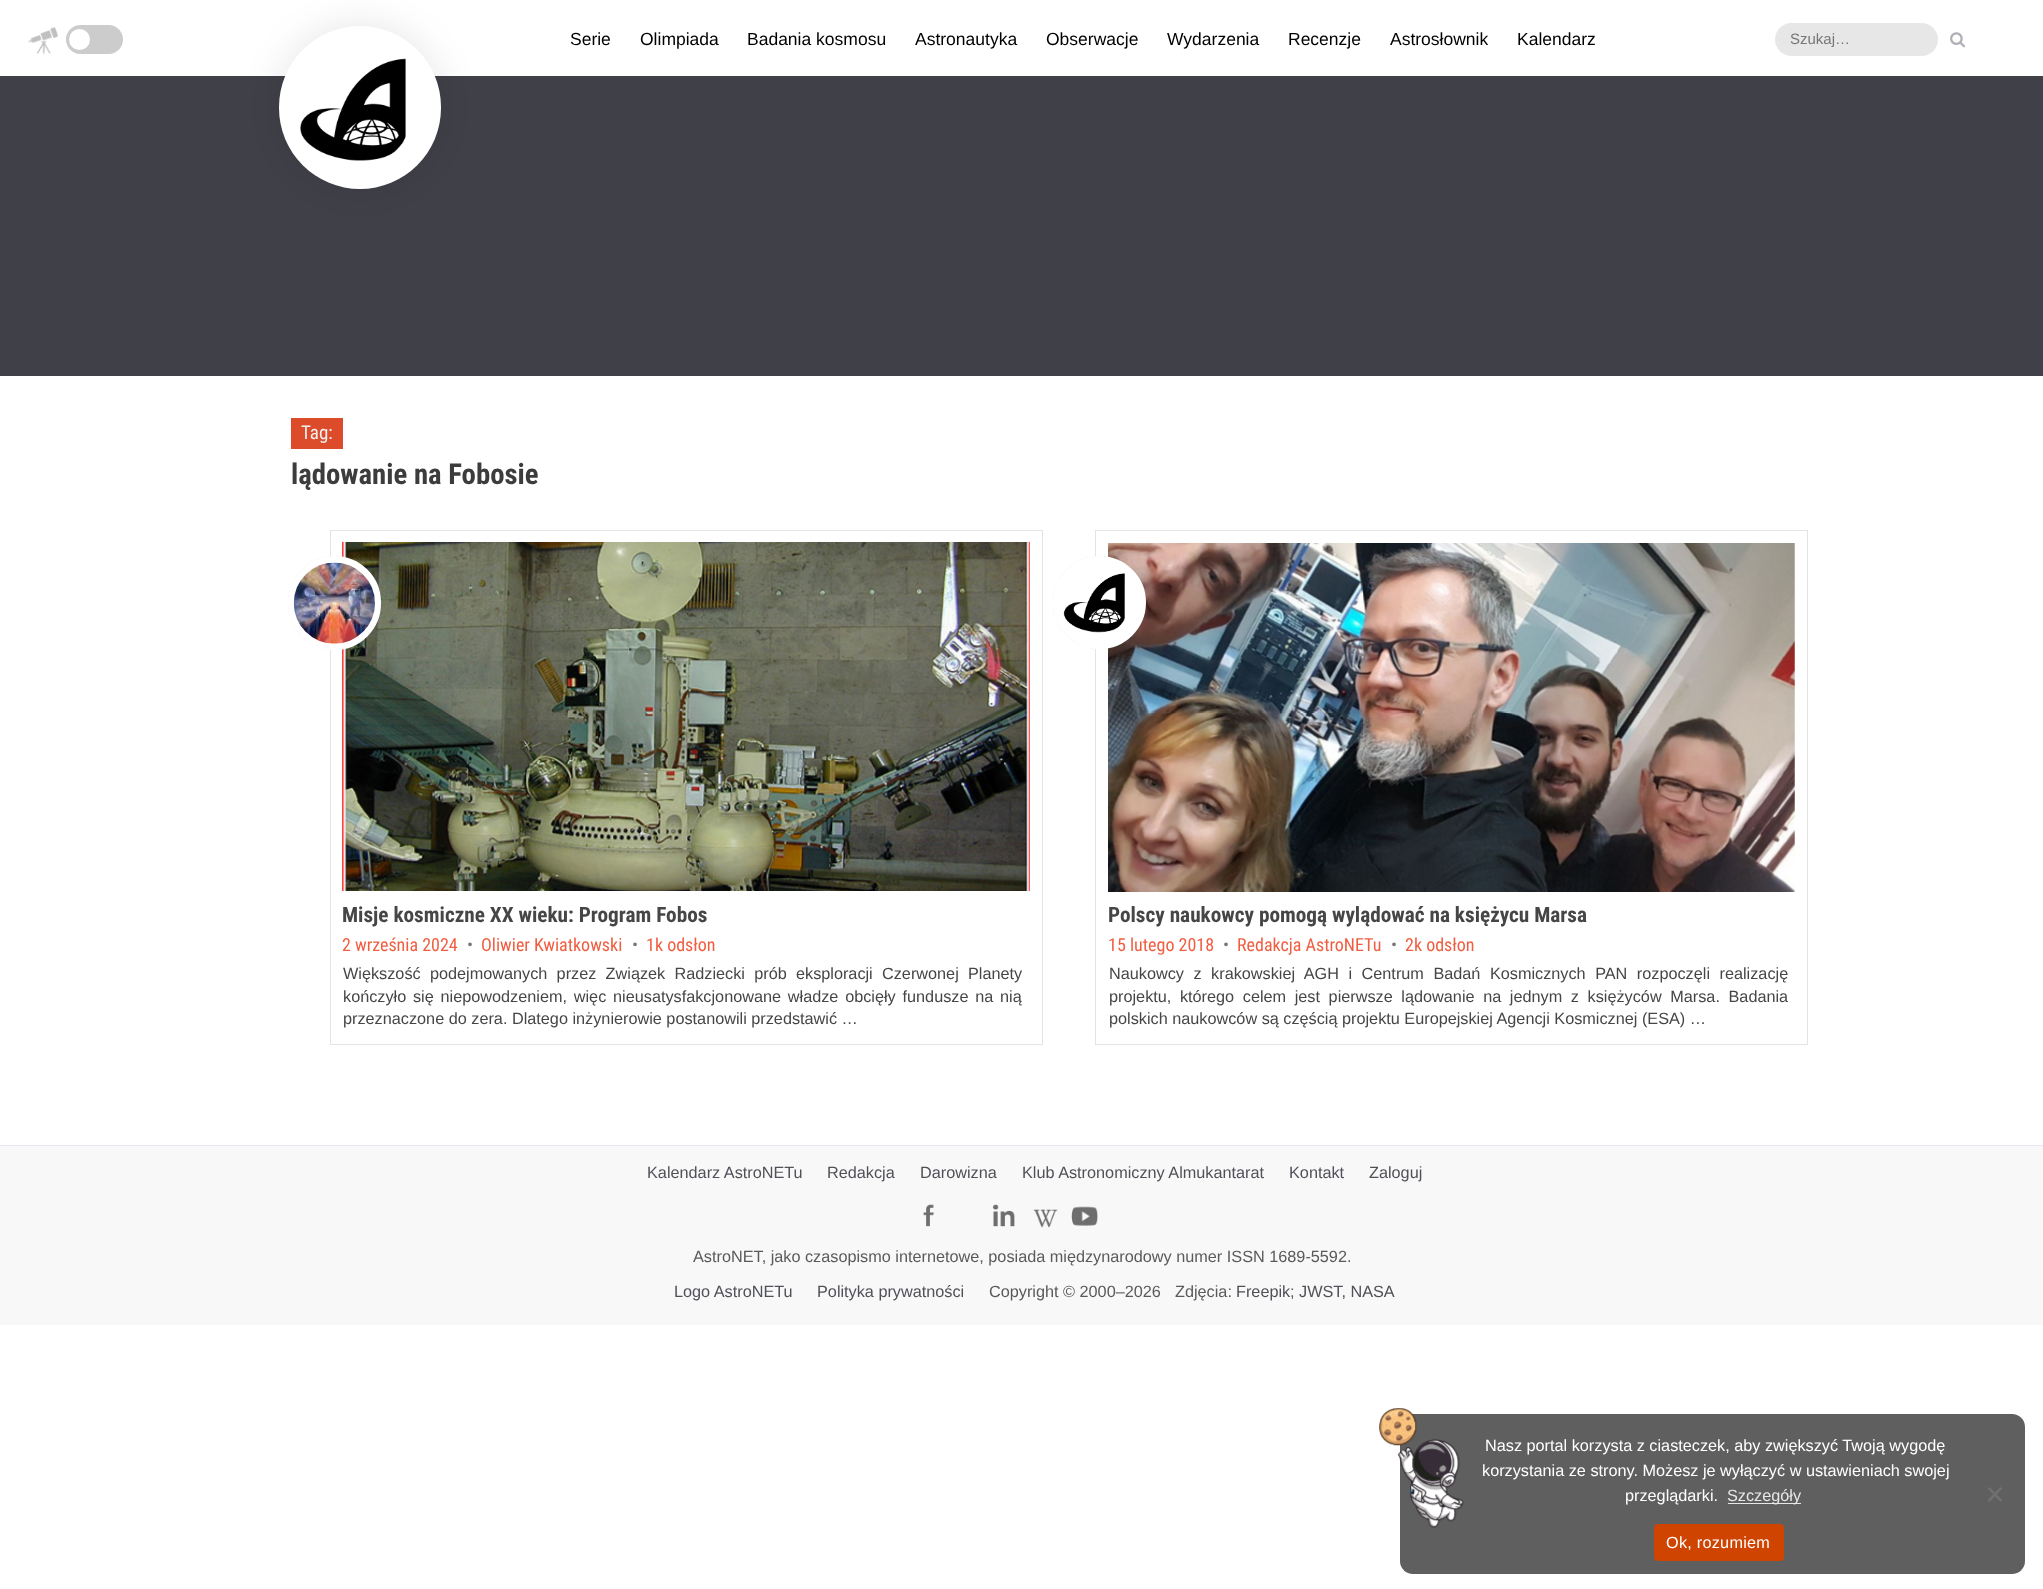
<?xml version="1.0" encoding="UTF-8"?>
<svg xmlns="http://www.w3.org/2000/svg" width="2043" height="1589">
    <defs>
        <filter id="blur1" x="-50%" y="-200%" width="200%" height="500%"><feGaussianBlur stdDeviation="19"/></filter>
        <filter id="blur2" x="-50%" y="-200%" width="200%" height="500%"><feGaussianBlur stdDeviation="0.5"/></filter>
    </defs>
    <rect width="100%" height="100%" fill="#FFFFFF"/>
    <image x="28" y="27" width="30" height="27" href="img_01.png"/>
    <rect x="66" y="25" width="57" height="29" rx="14.5" fill="#CCCCCC"/>
    <circle cx="79.5" cy="39.5" r="10.5" fill="#FFFFFF"/>
    <rect x="0" y="76" width="2043" height="300" fill="#404048"/>
    <rect x="279" y="26" width="162" height="163" rx="81" fill="#000000" fill-opacity="0.1" filter="url(#blur1)"/>
    <rect x="279" y="26" width="162" height="163" rx="81" fill="#FFFFFF"/>
    <image x="300" y="58" width="106" height="103" href="img_02.png"/>
    <text x="570" y="45" font-family="Liberation Sans" font-size="17.5" fill="#000000">Serie</text>
    <text x="640" y="45" font-family="Liberation Sans" font-size="17.5" fill="#000000">Olimpiada</text>
    <text x="747" y="45" font-family="Liberation Sans" font-size="17.5" fill="#000000">Badania kosmosu</text>
    <text x="915" y="45" font-family="Liberation Sans" font-size="17.5" fill="#000000">Astronautyka</text>
    <text x="1046" y="45" font-family="Liberation Sans" font-size="17.5" fill="#000000">Obserwacje</text>
    <text x="1167" y="45" font-family="Liberation Sans" font-size="17.5" fill="#000000">Wydarzenia</text>
    <text x="1288" y="45" font-family="Liberation Sans" font-size="17.5" fill="#000000">Recenzje</text>
    <text x="1390" y="45" font-family="Liberation Sans" font-size="17.5" fill="#000000">Astrosłownik</text>
    <text x="1517" y="45" font-family="Liberation Sans" font-size="17.5" fill="#000000">Kalendarz</text>
    <rect x="1775" y="23" width="163" height="33" rx="16.5" fill="#E7E7E7"/>
    <text x="1790" y="44" font-family="Liberation Sans" font-size="15" fill="#777777">Szukaj…</text>
    <image x="1950" y="32" width="15" height="16" href="img_03.png"/>
    <rect x="291" y="418" width="52" height="31" fill="#DC4C2B"/>
    <text x="301" y="439" font-family="Roboto Condensed" font-size="19" fill="#F0F0F0">Tag:</text>
    <text x="291" y="484" font-family="Roboto Condensed" font-size="28.75" font-weight="700" fill="#3C3C3C">lądowanie na Fobosie</text>
    <rect x="330.5" y="530.5" width="712" height="514" fill="none" stroke="#E4E4E4"/>
    <image x="342" y="542" width="688" height="349" href="img_05.png"/>
    <rect x="288" y="556" width="93" height="94" rx="46.5" fill="#000000" fill-opacity="0.12" filter="url(#blur2)"/>
    <rect x="291" y="559" width="87" height="88" rx="43.5" fill="#FFFFFF" stroke="#FFFFFF" stroke-width="6"/>
    <image x="293" y="562" width="82" height="82" href="img_04.png"/>
    <text x="342" y="922" font-family="Roboto Condensed" font-size="21.25" font-weight="700" fill="#464646">Misje kosmiczne XX wieku: Program Fobos</text>
    <text x="342" y="951" font-family="Roboto Condensed" font-size="18" fill="#F05E41">2 września 2024</text>
    <text x="467" y="951" font-family="Roboto Condensed" font-size="18" fill="#777777">•</text>
    <text x="481" y="951" font-family="Roboto Condensed" font-size="18" fill="#F05E41">Oliwier Kwiatkowski</text>
    <text x="632" y="951" font-family="Roboto Condensed" font-size="18" fill="#777777">•</text>
    <text x="646" y="951" font-family="Roboto Condensed" font-size="18" fill="#F05E41">1k odsłon</text>
    <text font-family="Liberation Sans" font-size="16.25" fill="#464646">
        <tspan x="343" y="979" word-spacing="4.75">Większość podejmowanych przez Związek Radziecki prób eksploracji Czerwonej Planety</tspan>
        <tspan x="343" y="1002" word-spacing="2.25">kończyło się niepowodzeniem, więc nieusatysfakcjonowane władze obcięły fundusze na nią</tspan>
        <tspan x="343" y="1024">przeznaczone do zera. Dlatego inżynierowie postanowili przedstawić …</tspan>
    </text>
    <rect x="1095.5" y="530.5" width="712" height="514" fill="none" stroke="#E4E4E4"/>
    <image x="1108" y="543" width="687" height="349" href="img_07.png"/>
    <rect x="1053" y="556" width="93" height="93" rx="46.5" fill="#000000" fill-opacity="0.12" filter="url(#blur2)"/>
    <circle cx="1099.5" cy="602.5" r="43.5" fill="#FFFFFF" stroke="#FFFFFF" stroke-width="6"/>
    <image x="1063" y="573" width="62" height="60" href="img_06.png"/>
    <text x="1108" y="922" font-family="Roboto Condensed" font-size="21.25" font-weight="700" fill="#464646">Polscy naukowcy pomogą wylądować na księżycu Marsa</text>
    <text x="1108" y="951" font-family="Roboto Condensed" font-size="18" fill="#F05E41">15 lutego 2018</text>
    <text x="1223" y="951" font-family="Roboto Condensed" font-size="18" fill="#777777">•</text>
    <text x="1237" y="951" font-family="Roboto Condensed" font-size="18" fill="#F05E41">Redakcja AstroNETu</text>
    <text x="1391" y="951" font-family="Roboto Condensed" font-size="18" fill="#777777">•</text>
    <text x="1405" y="951" font-family="Roboto Condensed" font-size="18" fill="#F05E41">2k odsłon</text>
    <text font-family="Liberation Sans" font-size="16.25" fill="#464646">
        <tspan x="1109" y="979" word-spacing="5">Naukowcy z krakowskiej AGH i Centrum Badań Kosmicznych PAN rozpoczęli realizację</tspan>
        <tspan x="1109" y="1002" word-spacing="4.1">projektu, którego celem jest pierwsze lądowanie na jednym z księżyców Marsa. Badania</tspan>
        <tspan x="1109" y="1024">polskich naukowców są częścią projektu Europejskiej Agencji Kosmicznej (ESA) …</tspan>
    </text>
    <rect x="0" y="1146" width="2043" height="179" fill="#F8F8F8"/>
    <rect x="0" y="1145" width="2043" height="1" fill="#E6E6F0"/>
    <text x="647" y="1178" font-family="Liberation Sans" font-size="16.25" fill="#505058">Kalendarz AstroNETu</text>
    <text x="827" y="1178" font-family="Liberation Sans" font-size="16.25" fill="#505058">Redakcja</text>
    <text x="920" y="1178" font-family="Liberation Sans" font-size="16.25" fill="#505058">Darowizna</text>
    <text x="1022" y="1178" font-family="Liberation Sans" font-size="16.25" fill="#505058">Klub Astronomiczny Almukantarat</text>
    <text x="1289" y="1178" font-family="Liberation Sans" font-size="16.25" fill="#505058">Kontakt</text>
    <text x="1369" y="1178" font-family="Liberation Sans" font-size="16.25" fill="#505058">Zaloguj</text>
    <image x="923" y="1204" width="11" height="23" href="img_08.png"/>
    <image x="992" y="1204" width="23" height="23" href="img_09.png"/>
    <image x="1033" y="1209" width="25" height="19" href="img_10.png"/>
    <image x="1071" y="1206" width="27" height="20" href="img_11.png"/>
    <text x="693" y="1262" font-family="Liberation Sans" font-size="16.25" fill="#5A5A5A">AstroNET, jako czasopismo internetowe, posiada międzynarodowy numer ISSN 1689-5592.</text>
    <text x="674" y="1297" font-family="Liberation Sans" font-size="16.25" fill="#505058">Logo AstroNETu</text>
    <text x="817" y="1297" font-family="Liberation Sans" font-size="16.25" fill="#505058">Polityka prywatności</text>
    <text x="989" y="1297" font-family="Liberation Sans" font-size="16.25" fill="#5A5A5A">Copyright © 2000–2026</text>
    <text x="1175" y="1297" font-family="Liberation Sans" font-size="16.25" fill="#5A5A5A">Zdjęcia:</text>
    <text x="1236" y="1297" font-family="Liberation Sans" font-size="16.25" fill="#505058">Freepik</text>
    <text x="1290" y="1297" font-family="Liberation Sans" font-size="16.25" fill="#5A5A5A">;</text>
    <text x="1299" y="1297" font-family="Liberation Sans" font-size="16.25" fill="#505058">JWST, NASA</text>
    <rect x="1400" y="1414" width="625" height="160" rx="13" fill="#5F5F5F"/>
    <image x="1379" y="1408" width="85" height="120" href="img_12.png"/>
    <text x="1485" y="1451" font-family="Liberation Sans" font-size="16.25" fill="#FFFFFF">Nasz portal korzysta z ciasteczek, aby zwiększyć Twoją wygodę</text>
    <text x="1482" y="1476" font-family="Liberation Sans" font-size="16.25" fill="#FFFFFF">korzystania ze strony. Możesz je wyłączyć w ustawieniach swojej</text>
    <text x="1625" y="1501" font-family="Liberation Sans" font-size="16.25" fill="#FFFFFF">przeglądarki.</text>
    <rect x="1728" y="1503" width="73" height="1" fill="#E7E7E7"/>
    <text x="1727" y="1501" font-family="Liberation Sans" font-size="16.25" fill="#E7E7E7">Szczegóły</text>
    <path d="M 2000.5 1487 L 2002.5 1488.5 L 1989.5 1502 L 1987.5 1500 Z" fill="#707070"/>
    <path d="M 1987.5 1488.5 L 1989.5 1487 L 2002.5 1500 L 2000.5 1502 Z" fill="#707070"/>
    <rect x="1654" y="1524" width="130" height="37" rx="4" fill="#CE4400"/>
    <text x="1666" y="1548" font-family="Liberation Sans" font-size="16.25" letter-spacing="0.25" fill="#FFFFFF">Ok, rozumiem</text>
</svg>
